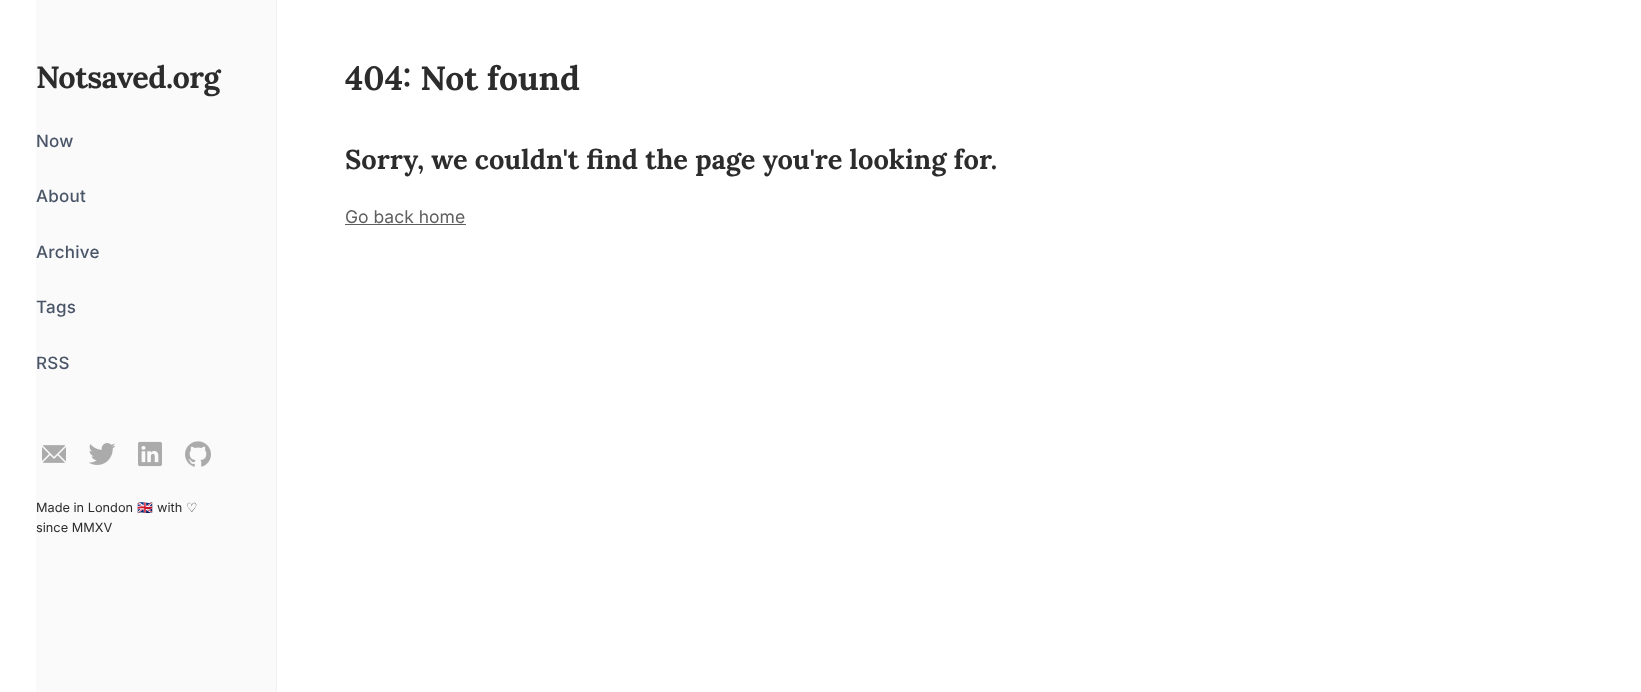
<?xml version="1.0" encoding="UTF-8"?>
<svg xmlns="http://www.w3.org/2000/svg" width="1641" height="692">
    <rect width="100%" height="100%" fill="#FFFFFF"/>
    <rect x="36" y="0" width="240" height="692" fill="#FAFAFA"/>
    <rect x="276" y="0" width="1" height="692" fill="#F0F0F0"/>
    <text x="36" y="88" font-family="Lora" font-size="30.75" font-weight="700" letter-spacing="-0.6" fill="#2C2C2C">Notsaved.org</text>
    <text x="36" y="147" font-family="Inter" font-size="17" font-weight="500" letter-spacing="0.25" fill="#4A5568">Now</text>
    <text x="36" y="202" font-family="Inter" font-size="17" font-weight="500" letter-spacing="0.25" fill="#4A5568">About</text>
    <text x="36" y="258" font-family="Inter" font-size="17" font-weight="500" letter-spacing="0.25" fill="#4A5568">Archive</text>
    <text x="36" y="313" font-family="Inter" font-size="17" font-weight="500" letter-spacing="0.25" fill="#4A5568">Tags</text>
    <text x="36" y="369" font-family="Inter" font-size="17" font-weight="500" letter-spacing="0.25" fill="#4A5568">RSS</text>
    <image x="42" y="445" width="24" height="18" href="img_01.png"/>
    <image x="88" y="443" width="28" height="22" href="img_02.png"/>
    <image x="138" y="441" width="24" height="26" href="img_03.png"/>
    <image x="185" y="441" width="26" height="26" href="img_04.png"/>
    <text x="36" y="512" font-family="Inter" font-size="12.75" fill="#2C2C2C">Made in London</text>
    <text x="137" y="512" font-family="Noto Color Emoji" font-size="12.75" fill="#2C2C2C">🇬🇧</text>
    <text x="157" y="512" font-family="Inter" font-size="12.75" fill="#2C2C2C">with</text>
    <text x="186" y="512" font-family="DejaVu Sans" font-size="12.75" fill="#2C2C2C">♡</text>
    <text x="36" y="532" font-family="Inter" font-size="12.75" fill="#2C2C2C">since MMXV</text>
    <text x="345" y="90" font-family="Lora" font-size="33.5" font-weight="700" fill="#2C2C2C">404: Not found</text>
    <text x="345" y="169" font-family="Lora" font-size="27.25" font-weight="700" fill="#2C2C2C">Sorry, we couldn't find the page you're looking for.</text>
    <text x="345" y="223" font-family="Inter" font-size="17.5" fill="#5F5F5F">Go back home</text>
    <rect x="345" y="224" width="121" height="1" fill="#5F5F5F"/>
</svg>
